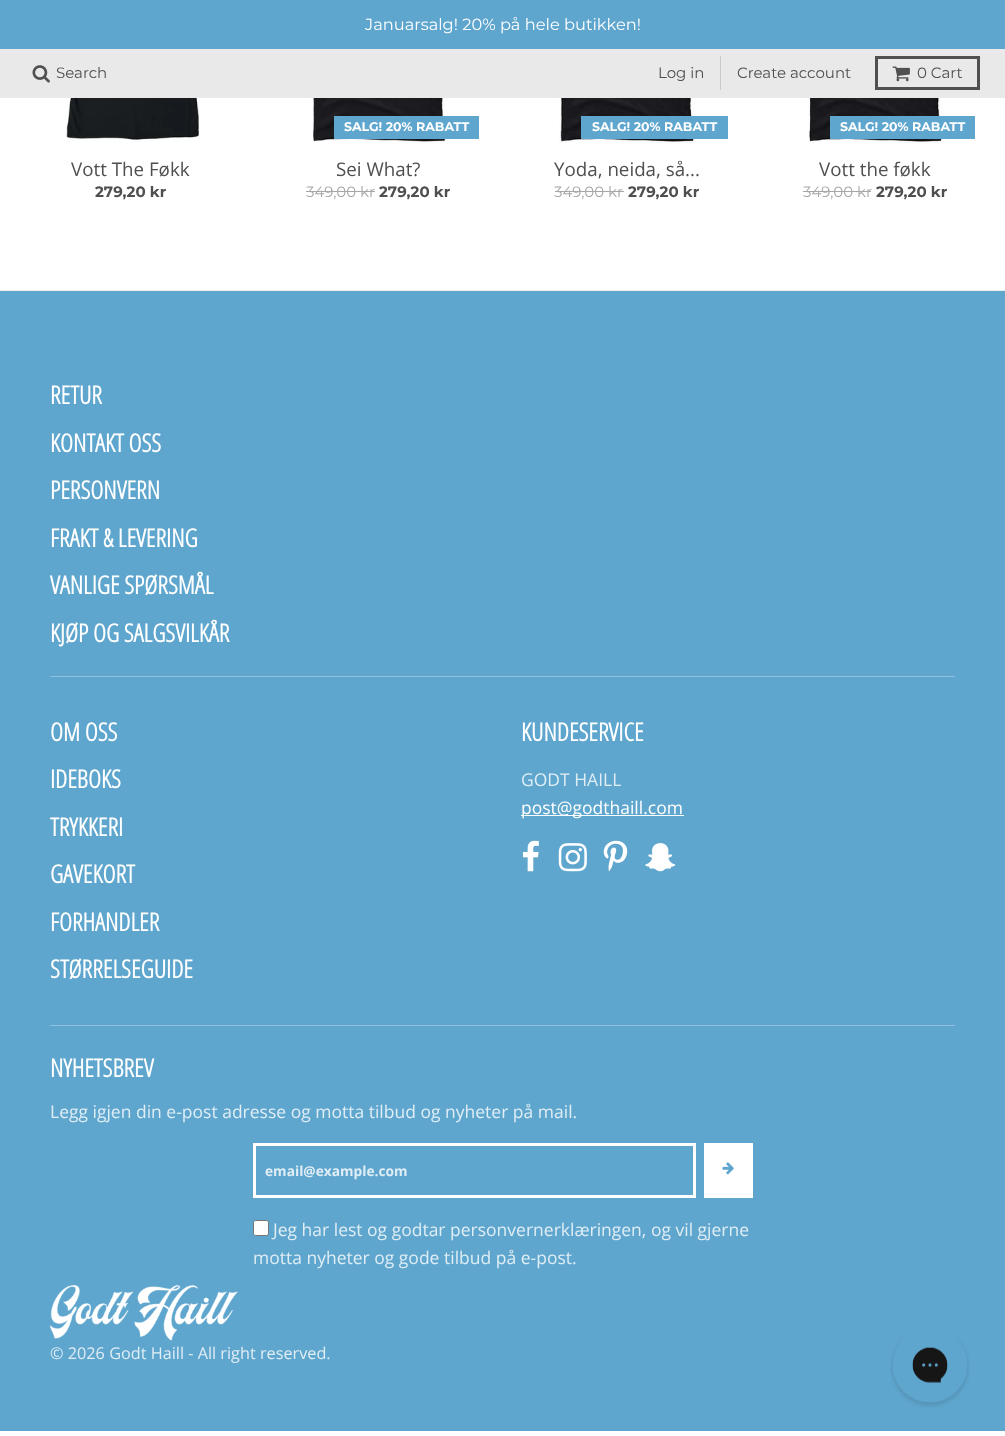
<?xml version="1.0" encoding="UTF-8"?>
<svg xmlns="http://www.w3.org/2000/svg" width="1005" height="1436">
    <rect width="100%" height="100%" fill="#FFFFFF"/>
    <rect x="0" y="0" width="1005" height="49" fill="#5FA6CE"/>
    <text x="365" y="30" font-family="Montserrat" font-size="16.25" font-weight="100" fill="#FFFFFF">Januarsalg! 20% på hele butikken!</text>
    <rect x="0" y="49" width="1005" height="49" fill="#E9E9E9"/>
    <image x="32" y="65" width="18" height="18" href="img_01.png"/>
    <text x="56" y="78" font-family="Montserrat" font-size="15" font-weight="100" fill="#4F4F4F">Search</text>
    <rect x="720" y="56" width="1" height="34" fill="#CACACA"/>
    <text x="658" y="78" font-family="Montserrat" font-size="15" font-weight="100" fill="#4F4F4F">Log in</text>
    <text x="737" y="78" font-family="Montserrat" font-size="15" font-weight="100" fill="#4F4F4F">Create account</text>
    <rect x="876.5" y="57.5" width="102" height="31" fill="none" stroke="#505050" stroke-width="3"/>
    <image x="892" y="66" width="18" height="16" href="img_02.png"/>
    <text x="917" y="78" font-family="Montserrat" font-size="15" font-weight="100" fill="#4F4F4F">0 Cart</text>
    <rect x="0" y="290" width="1005" height="1" fill="#EDEDED"/>
    <image x="52" y="98" width="155" height="44" href="img_03.png"/>
    <text x="71" y="176" font-family="Open Sans" font-size="18.75" fill="#4F4F4F">Vott The Føkk</text>
    <text x="95" y="197" font-family="Montserrat" font-size="15" font-weight="700" fill="#4F4F4F">279,20 kr</text>
    <image x="288" y="98" width="185" height="44" href="img_04.png"/>
    <rect x="334" y="116" width="145" height="23" fill="#5FA6CE"/>
    <text x="344" y="131" font-family="Montserrat" font-size="12.5" font-weight="700" fill="#FFFFFF">SALG! 20% RABATT</text>
    <text x="336" y="176" font-family="Open Sans" font-size="18.75" fill="#4F4F4F">Sei What?</text>
    <text x="306" y="197" font-family="Montserrat" font-size="15" font-weight="100" fill="#A7A7A7">349,00 kr</text>
    <rect x="306" y="191" width="69" height="1" fill="#A7A7A7"/>
    <text x="379" y="197" font-family="Montserrat" font-size="15" font-weight="700" fill="#4F4F4F">279,20 kr</text>
    <image x="533" y="98" width="191" height="45" href="img_05.png"/>
    <rect x="581" y="116" width="147" height="23" fill="#5FA6CE"/>
    <text x="592" y="131" font-family="Montserrat" font-size="12.5" font-weight="700" fill="#FFFFFF">SALG! 20% RABATT</text>
    <text x="554" y="176" font-family="Open Sans" font-size="18.75" fill="#4F4F4F">Yoda, neida, så...</text>
    <text x="554" y="197" font-family="Montserrat" font-size="15" font-weight="100" fill="#A7A7A7">349,00 kr</text>
    <rect x="555" y="191" width="69" height="1" fill="#A7A7A7"/>
    <text x="628" y="197" font-family="Montserrat" font-size="15" font-weight="700" fill="#4F4F4F">279,20 kr</text>
    <image x="782" y="98" width="190" height="45" href="img_06.png"/>
    <rect x="830" y="116" width="145" height="23" fill="#5FA6CE"/>
    <text x="840" y="131" font-family="Montserrat" font-size="12.5" font-weight="700" fill="#FFFFFF">SALG! 20% RABATT</text>
    <text x="819" y="176" font-family="Open Sans" font-size="18.75" fill="#4F4F4F">Vott the føkk</text>
    <text x="803" y="197" font-family="Montserrat" font-size="15" font-weight="100" fill="#A7A7A7">349,00 kr</text>
    <rect x="803" y="191" width="68" height="1" fill="#A7A7A7"/>
    <text x="876" y="197" font-family="Montserrat" font-size="15" font-weight="700" fill="#4F4F4F">279,20 kr</text>
    <rect x="0" y="291" width="1005" height="1140" fill="#5FA6CE"/>
    <text font-family="Open Sans Condensed" font-size="25" font-weight="700" fill="#FFFFFF">
        <tspan x="50" y="404">RETUR</tspan>
        <tspan x="50" y="452">KONTAKT OSS</tspan>
        <tspan x="50" y="499">PERSONVERN</tspan>
        <tspan x="50" y="547">FRAKT &amp; LEVERING</tspan>
        <tspan x="50" y="594">VANLIGE SPØRSMÅL</tspan>
    </text>
    <rect x="50" y="676" width="905" height="1" fill="#8FC0DC"/>
    <text x="50" y="642" font-family="Open Sans Condensed" font-size="25" font-weight="700" fill="#FFFFFF">KJØP OG SALGSVILKÅR</text>
    <text font-family="Open Sans Condensed" font-size="25" font-weight="700" fill="#FFFFFF">
        <tspan x="50" y="741">OM OSS</tspan>
        <tspan x="50" y="788">IDEBOKS</tspan>
        <tspan x="50" y="836">TRYKKERI</tspan>
        <tspan x="50" y="883">GAVEKORT</tspan>
        <tspan x="50" y="931">FORHANDLER</tspan>
        <tspan x="50" y="978">STØRRELSEGUIDE</tspan>
    </text>
    <text x="521" y="741" font-family="Open Sans Condensed" font-size="25" font-weight="700" fill="#FFFFFF">KUNDESERVICE</text>
    <text x="521" y="786" font-family="Open Sans" font-size="17.5" fill="#DFEDF5">GODT HAILL</text>
    <rect x="521" y="815" width="163" height="1" fill="#FFFFFF"/>
    <text x="521" y="814" font-family="Open Sans" font-size="17.5" fill="#FFFFFF">post@godthaill.com</text>
    <image x="523" y="840" width="16" height="32" href="img_07.png"/>
    <image x="558" y="843" width="29" height="29" href="img_08.png"/>
    <image x="603" y="840" width="25" height="32" href="img_09.png"/>
    <image x="645" y="843" width="31" height="29" href="img_10.png"/>
    <rect x="50" y="1025" width="905" height="1" fill="#8FC0DC"/>
    <text x="50" y="1077" font-family="Open Sans Condensed" font-size="25" font-weight="700" fill="#FFFFFF">NYHETSBREV</text>
    <text x="50" y="1118" font-family="Open Sans" font-size="17.5" fill="#DFEDF5">Legg igjen din e-post adresse og motta tilbud og nyheter på mail.</text>
    <rect x="254.5" y="1144.5" width="440" height="52" fill="none" stroke="#FFFFFF" stroke-width="3"/>
    <text x="265" y="1176" font-family="Open Sans" font-size="13.75" font-weight="700" fill="#DFEDF5">email@example.com</text>
    <rect x="704" y="1143" width="49" height="55" fill="#FFFFFF"/>
    <image x="722" y="1162" width="12" height="13" href="img_11.png"/>
    <rect x="253.5" y="1220.5" width="15" height="15" rx="2" fill="#FFFFFF" stroke="#767676"/>
    <text x="273" y="1236" font-family="Open Sans" font-size="17.5" fill="#DFEDF5">Jeg har lest og godtar personvernerklæringen, og vil gjerne</text>
    <text x="253" y="1264" font-family="Open Sans" font-size="17.5" fill="#DFEDF5">motta nyheter og gode tilbud på e-post.</text>
    <image x="50" y="1285" width="188" height="56" href="img_12.png"/>
    <text x="50" y="1359" font-family="Open Sans" font-size="16.25" fill="#DFEDF5">© 2026 Godt Haill - All right reserved.</text>
    <image x="890" y="1337" width="80" height="71" href="img_13.png"/>
</svg>
